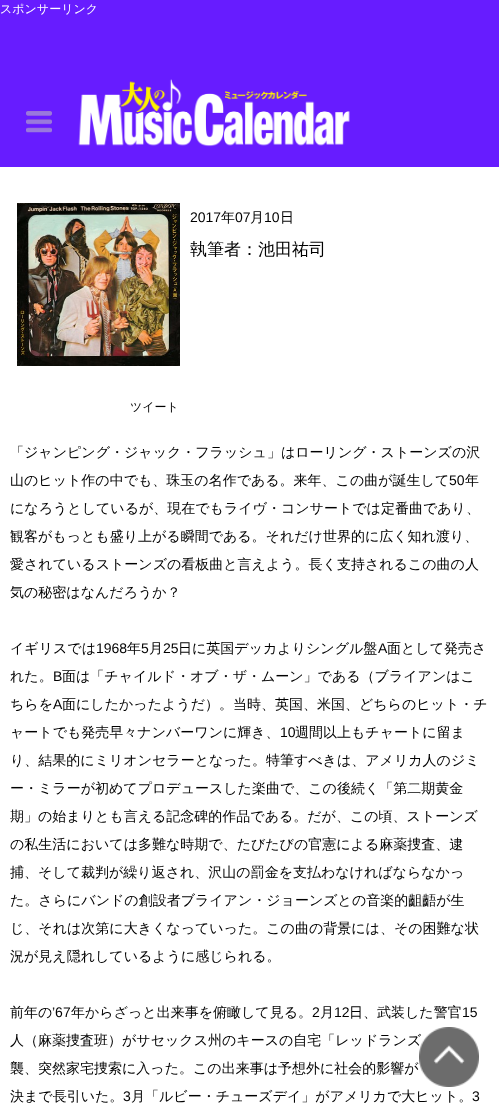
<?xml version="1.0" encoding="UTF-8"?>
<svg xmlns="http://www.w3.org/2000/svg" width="499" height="1107">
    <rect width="100%" height="100%" fill="#FFFFFF"/>
    <rect x="0" y="0" width="499" height="167" fill="#671CFF"/>
    <text x="0" y="13" font-family="WenQuanYi Zen Hei" font-size="12" font-weight="500" fill="#FFFFFF">スポンサーリンク</text>
    <image x="26" y="111" width="26" height="22" href="img_01.png"/>
    <image x="78" y="79" width="272" height="68" href="img_02.png"/>
    <image x="17" y="203" width="163" height="163" href="img_03.png"/>
    <text x="190" y="222" font-family="Liberation Sans" font-size="14" fill="#000000">2017</text>
    <text x="221" y="222" font-family="WenQuanYi Zen Hei" font-size="14" font-weight="500" fill="#000000">年</text>
    <text x="235" y="222" font-family="Liberation Sans" font-size="14" fill="#000000">07</text>
    <text x="250" y="222" font-family="WenQuanYi Zen Hei" font-size="14" font-weight="500" fill="#000000">月</text>
    <text x="264" y="222" font-family="Liberation Sans" font-size="14" fill="#000000">10</text>
    <text x="280" y="222" font-family="WenQuanYi Zen Hei" font-size="14" font-weight="500" fill="#000000">日</text>
    <text x="190" y="255" font-family="WenQuanYi Zen Hei" font-size="17" font-weight="500" fill="#000000">執筆者：池田祐司</text>
    <text x="130" y="411" font-family="WenQuanYi Zen Hei" font-size="12" font-weight="500" fill="#000000">ツイート</text>
    <text x="10" y="457" font-family="WenQuanYi Zen Hei" font-size="14" font-weight="500" fill="#000000">「ジャンピング・ジャック・フラッシュ」はローリング・ストーンズの沢</text>
    <text x="10" y="485" font-family="WenQuanYi Zen Hei" font-size="14" font-weight="500" fill="#000000">山のヒット作の中でも、珠玉の名作である。来年、この曲が誕生して</text>
    <text x="449" y="485" font-family="Liberation Sans" font-size="14" fill="#000000">50</text>
    <text x="465" y="485" font-family="WenQuanYi Zen Hei" font-size="14" font-weight="500" fill="#000000">年</text>
    <text x="10" y="513" font-family="WenQuanYi Zen Hei" font-size="14" font-weight="500" fill="#000000">になろうとしているが、現在でもライヴ・コンサートでは定番曲であり、</text>
    <text x="10" y="541" font-family="WenQuanYi Zen Hei" font-size="14" font-weight="500" fill="#000000">観客がもっとも盛り上がる瞬間である。それだけ世界的に広く知れ渡り、</text>
    <text x="10" y="569" font-family="WenQuanYi Zen Hei" font-size="14" font-weight="500" fill="#000000">愛されているストーンズの看板曲と言えよう。長く支持されるこの曲の人</text>
    <text x="10" y="597" font-family="WenQuanYi Zen Hei" font-size="14" font-weight="500" fill="#000000">気の秘密はなんだろうか？</text>
    <text x="10" y="653" font-family="WenQuanYi Zen Hei" font-size="14" font-weight="500" fill="#000000">イギリスでは</text>
    <text x="96" y="653" font-family="Liberation Sans" font-size="14" fill="#000000">1968</text>
    <text x="127" y="653" font-family="WenQuanYi Zen Hei" font-size="14" font-weight="500" fill="#000000">年</text>
    <text x="141" y="653" font-family="Liberation Sans" font-size="14" fill="#000000">5</text>
    <text x="149" y="653" font-family="WenQuanYi Zen Hei" font-size="14" font-weight="500" fill="#000000">月</text>
    <text x="163" y="653" font-family="Liberation Sans" font-size="14" fill="#000000">25</text>
    <text x="178" y="653" font-family="WenQuanYi Zen Hei" font-size="14" font-weight="500" fill="#000000">日に英国デッカよりシングル盤</text>
    <text x="378" y="653" font-family="Liberation Sans" font-size="14" fill="#000000">A</text>
    <text x="387" y="653" font-family="WenQuanYi Zen Hei" font-size="14" font-weight="500" fill="#000000">面として発売さ</text>
    <text x="10" y="681" font-family="WenQuanYi Zen Hei" font-size="14" font-weight="500" fill="#000000">れた。</text>
    <text x="53" y="681" font-family="Liberation Sans" font-size="14" fill="#000000">B</text>
    <text x="62" y="681" font-family="WenQuanYi Zen Hei" font-size="14" font-weight="500" fill="#000000">面は「チャイルド・オブ・ザ・ムーン」である（ブライアンはこ</text>
    <text x="10" y="709" font-family="WenQuanYi Zen Hei" font-size="14" font-weight="500" fill="#000000">ちらを</text>
    <text x="53" y="709" font-family="Liberation Sans" font-size="14" fill="#000000">A</text>
    <text x="62" y="709" font-family="WenQuanYi Zen Hei" font-size="14" font-weight="500" fill="#000000">面にしたかったようだ）。当時、英国、米国、どちらのヒット・チ</text>
    <text x="10" y="737" font-family="WenQuanYi Zen Hei" font-size="14" font-weight="500" fill="#000000">ャートでも発売早々ナンバーワンに輝き、</text>
    <text x="280" y="737" font-family="Liberation Sans" font-size="14" fill="#000000">10</text>
    <text x="295" y="737" font-family="WenQuanYi Zen Hei" font-size="14" font-weight="500" fill="#000000">週間以上もチャートに留ま</text>
    <text x="10" y="765" font-family="WenQuanYi Zen Hei" font-size="14" font-weight="500" fill="#000000">り、結果的にミリオンセラーとなった。特筆すべきは、アメリカ人のジミ</text>
    <text x="10" y="793" font-family="WenQuanYi Zen Hei" font-size="14" font-weight="500" fill="#000000">ー・ミラーが初めてプロデュースした楽曲で、この後続く「第二期黄金</text>
    <text x="10" y="821" font-family="WenQuanYi Zen Hei" font-size="14" font-weight="500" fill="#000000">期」の始まりとも言える記念碑的作品である。だが、この頃、ストーンズ</text>
    <text x="10" y="849" font-family="WenQuanYi Zen Hei" font-size="14" font-weight="500" fill="#000000">の私生活においては多難な時期で、たびたびの官憲による麻薬捜査、逮</text>
    <text x="10" y="877" font-family="WenQuanYi Zen Hei" font-size="14" font-weight="500" fill="#000000">捕、そして裁判が繰り返され、沢山の罰金を支払わなければならなかっ</text>
    <text x="10" y="905" font-family="WenQuanYi Zen Hei" font-size="14" font-weight="500" fill="#000000">た。さらにバンドの創設者ブライアン・ジョーンズとの音楽的齟齬が生</text>
    <text x="10" y="933" font-family="WenQuanYi Zen Hei" font-size="14" font-weight="500" fill="#000000">じ、それは次第に大きくなっていった。この曲の背景には、その困難な状</text>
    <text x="10" y="961" font-family="WenQuanYi Zen Hei" font-size="14" font-weight="500" fill="#000000">況が見え隠れしているように感じられる。</text>
    <text x="10" y="1017" font-family="WenQuanYi Zen Hei" font-size="14" font-weight="500" fill="#000000">前年の</text>
    <text x="52" y="1017" font-family="Liberation Sans" font-size="14" fill="#000000">’67</text>
    <text x="71" y="1017" font-family="WenQuanYi Zen Hei" font-size="14" font-weight="500" fill="#000000">年からざっと出来事を俯瞰して見る。</text>
    <text x="312" y="1017" font-family="Liberation Sans" font-size="14" fill="#000000">2</text>
    <text x="320" y="1017" font-family="WenQuanYi Zen Hei" font-size="14" font-weight="500" fill="#000000">月</text>
    <text x="334" y="1017" font-family="Liberation Sans" font-size="14" fill="#000000">12</text>
    <text x="349" y="1017" font-family="WenQuanYi Zen Hei" font-size="14" font-weight="500" fill="#000000">日、武装した警官</text>
    <text x="462" y="1017" font-family="Liberation Sans" font-size="14" fill="#000000">15</text>
    <text x="10" y="1045" font-family="WenQuanYi Zen Hei" font-size="14" font-weight="500" fill="#000000">人（麻薬捜査班）がサセックス州のキースの自宅「レッドランズ</text>
    <text x="10" y="1073" font-family="WenQuanYi Zen Hei" font-size="14" font-weight="500" fill="#000000">襲、突然家宅捜索に入った。この出来事は予想外に社会的影響が</text>
    <text x="10" y="1101" font-family="WenQuanYi Zen Hei" font-size="14" font-weight="500" fill="#000000">決まで長引いた。</text>
    <text x="123" y="1101" font-family="Liberation Sans" font-size="14" fill="#000000">3</text>
    <text x="131" y="1101" font-family="WenQuanYi Zen Hei" font-size="14" font-weight="500" fill="#000000">月「ルビー・チューズデイ」がアメリカで大ヒット。</text>
    <text x="472" y="1101" font-family="Liberation Sans" font-size="14" fill="#000000">3</text>
    <image x="419" y="1027" width="60" height="60" href="img_04.png"/>
</svg>
